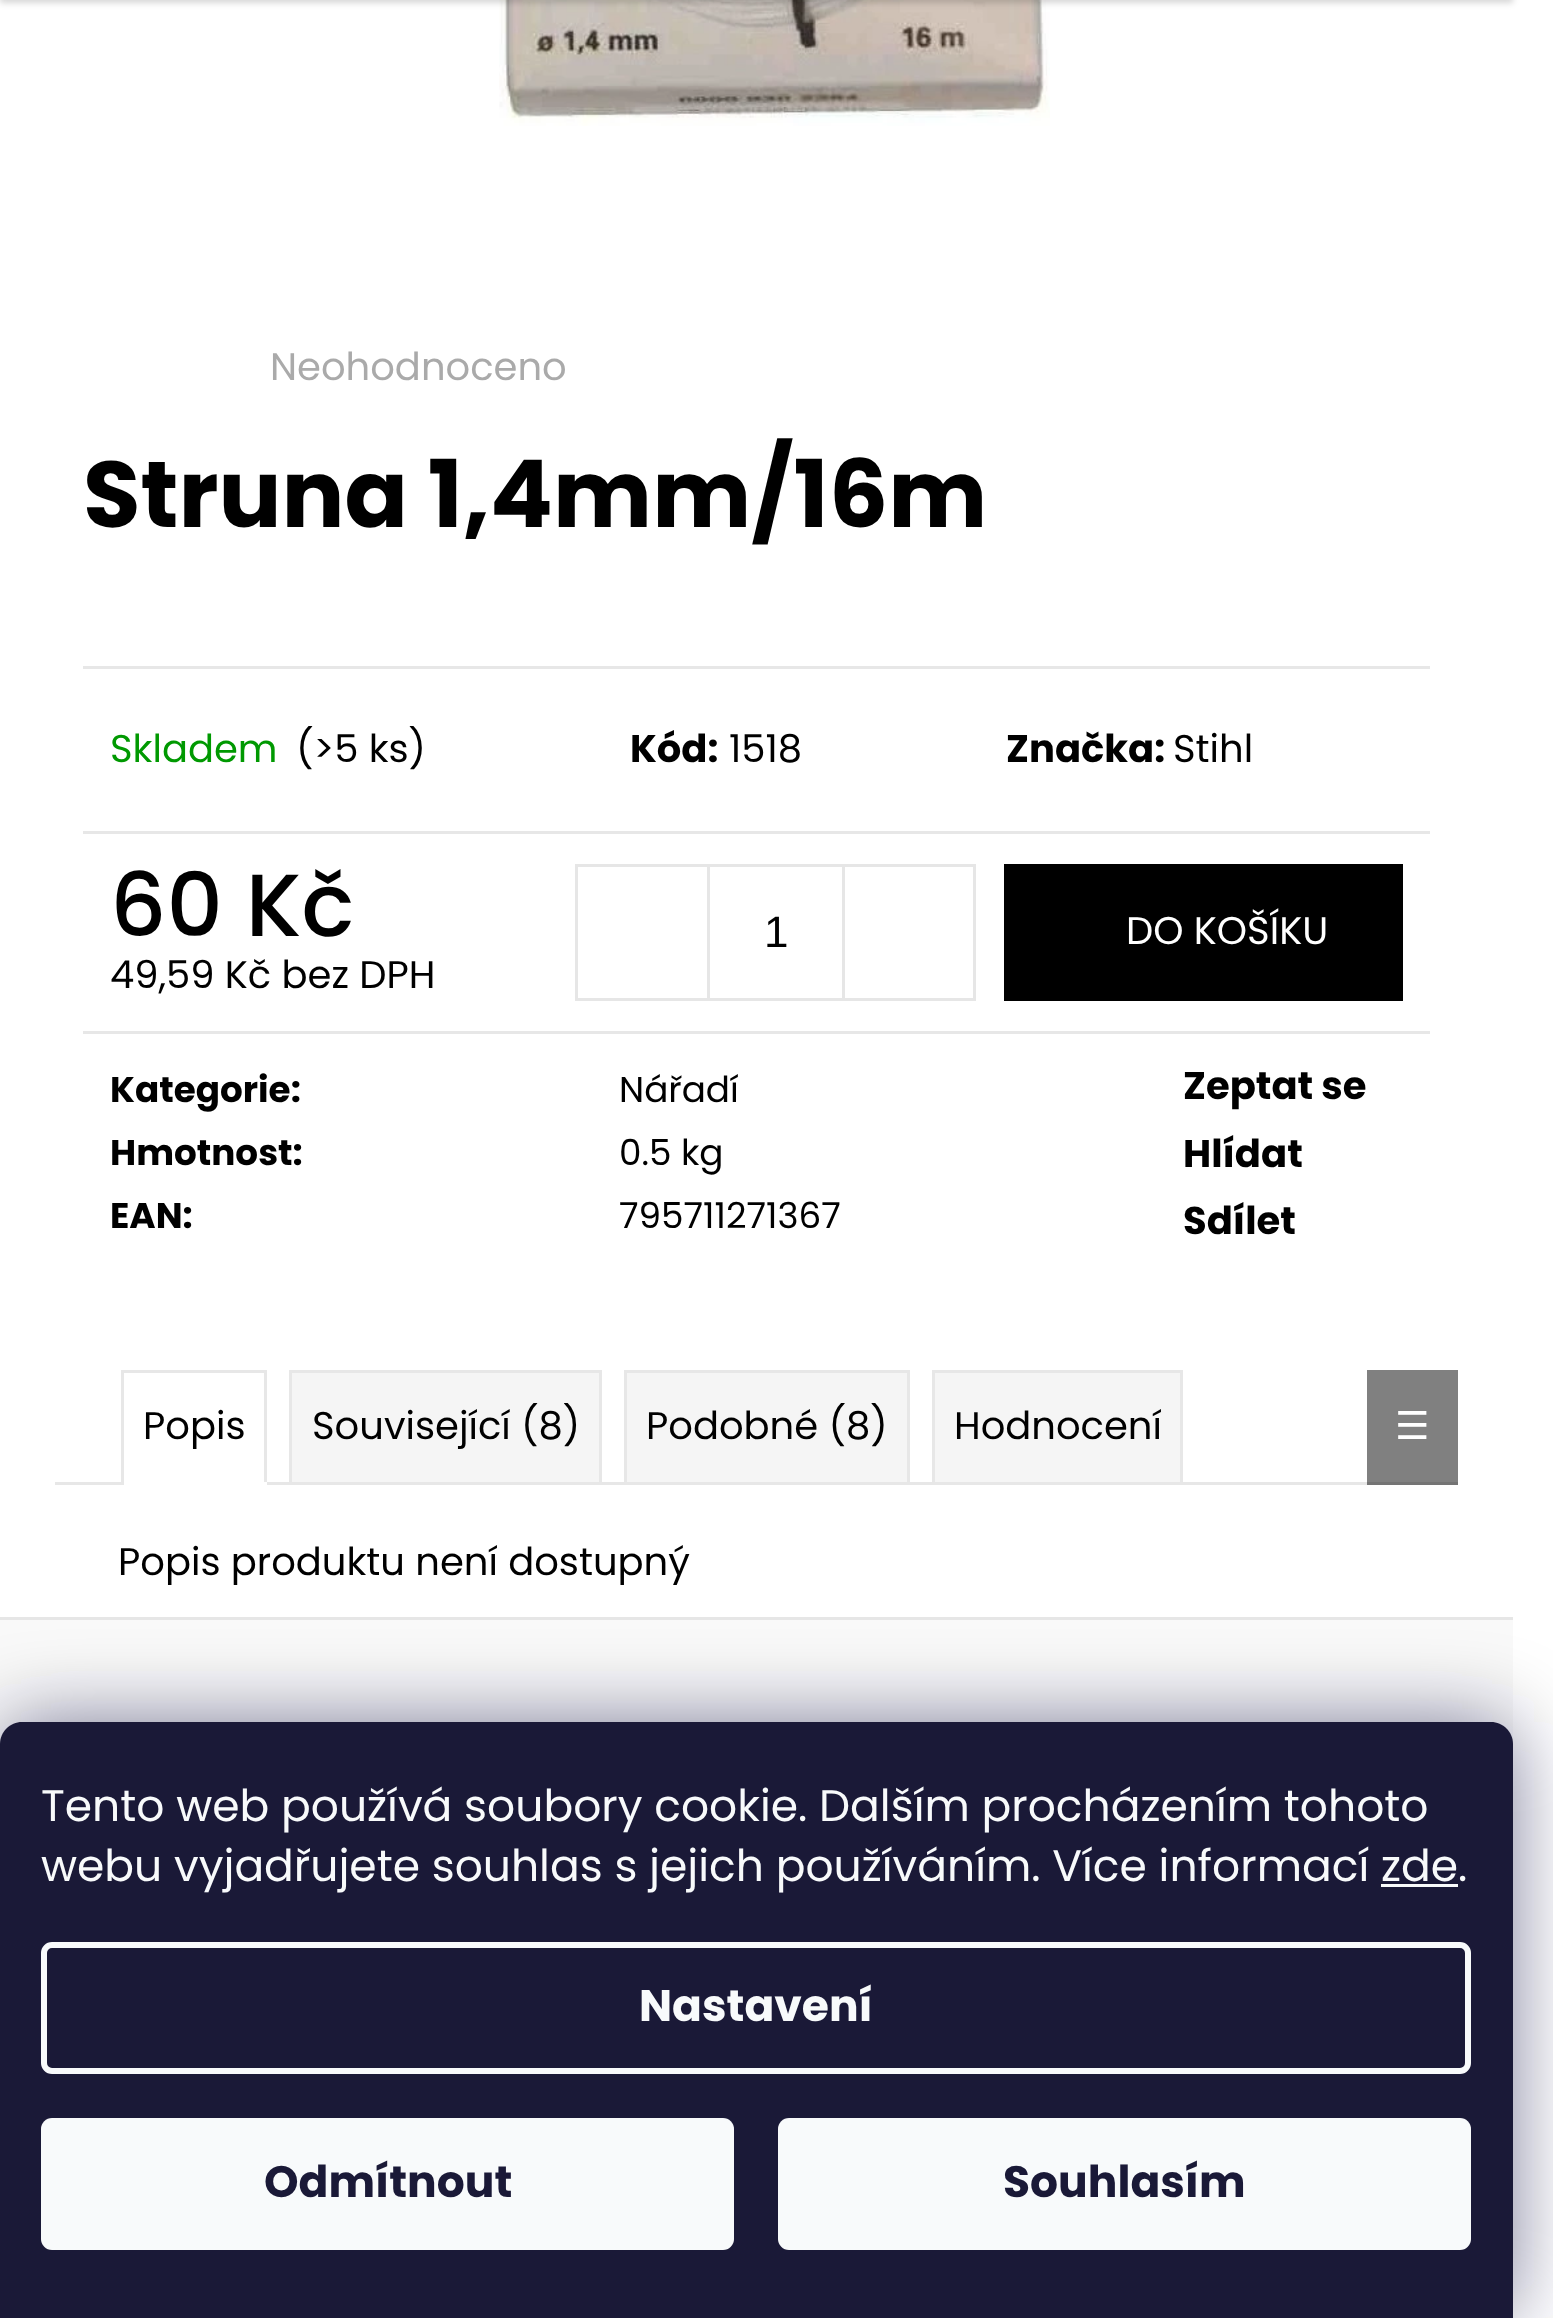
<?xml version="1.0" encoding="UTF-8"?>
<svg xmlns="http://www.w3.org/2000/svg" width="1553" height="2318">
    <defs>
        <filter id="blur1" x="-50%" y="-200%" width="200%" height="500%"><feGaussianBlur stdDeviation="3"/></filter>
        <filter id="blur2" x="-50%" y="-200%" width="200%" height="500%"><feGaussianBlur stdDeviation="41"/></filter>
    </defs>
    <rect width="100%" height="100%" fill="#FFFFFF"/>
    <rect x="1367" y="1370" width="91" height="112" fill="#808080"/>
    <image x="499" y="0" width="551" height="126" href="img_01.png"/>
    <rect x="0" y="-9" width="1513" height="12" fill="#000000" fill-opacity="0.16" filter="url(#blur1)"/>
    <text x="270" y="380" font-family="Poppins" font-size="38.5" fill="#AAAAAA">Neohodnoceno</text>
    <text x="83" y="527" font-family="Poppins" font-size="93.5" font-weight="700" fill="#000000">Struna 1,4mm/16m</text>
    <rect x="83" y="666" width="1347" height="3" fill="#E7E7E7"/>
    <rect x="83" y="831" width="1347" height="3" fill="#E7E7E7"/>
    <text x="110" y="762" font-family="Poppins" font-size="38.5" fill="#009901">Skladem</text>
    <text x="296" y="762" font-family="Poppins" font-size="38.5" fill="#000000">(&gt;5 ks)</text>
    <text x="630" y="762" font-family="Poppins" font-size="38.5" font-weight="700" fill="#000000">Kód:</text>
    <text x="729" y="762" font-family="Poppins" font-size="38.5" fill="#000000">1518</text>
    <text x="1006" y="762" font-family="Poppins" font-size="38.5" font-weight="700" fill="#000000">Značka:</text>
    <text x="1173" y="762" font-family="Poppins" font-size="38.5" fill="#000000">Stihl</text>
    <rect x="83" y="1031" width="1347" height="3" fill="#E7E7E7"/>
    <text x="110" y="936" font-family="Poppins" font-size="88" font-weight="500" fill="#000000">60 Kč</text>
    <text x="110" y="988" font-family="Poppins" font-size="38.5" fill="#000000">49,59 Kč bez DPH</text>
    <rect x="576.5" y="865.5" width="398" height="134" fill="none" stroke="#E6E6E6" stroke-width="3"/>
    <rect x="707" y="866" width="3" height="132" fill="#E6E6E6"/>
    <text x="764" y="947" font-family="Liberation Sans" font-size="44" fill="#000000">1</text>
    <rect x="842" y="866" width="3" height="132" fill="#E6E6E6"/>
    <rect x="1004" y="864" width="399" height="137" fill="#000000"/>
    <text x="1126" y="944" font-family="Poppins" font-size="38.5" fill="#FFFFFF">DO KOŠÍKU</text>
    <text x="110" y="1102" font-family="Poppins" font-size="35.75" font-weight="700" fill="#000000">Kategorie:</text>
    <text x="619" y="1102" font-family="Poppins" font-size="35.75" fill="#000000">Nářadí</text>
    <text x="110" y="1165" font-family="Poppins" font-size="35.75" font-weight="700" fill="#000000">Hmotnost:</text>
    <text x="619" y="1165" font-family="Poppins" font-size="35.75" fill="#000000">0.5 kg</text>
    <text x="110" y="1228" font-family="Poppins" font-size="35.75" font-weight="700" fill="#000000">EAN:</text>
    <text x="619" y="1228" font-family="Poppins" font-size="35.75" fill="#000000">795711271367</text>
    <text font-family="Poppins" font-size="38.5" font-weight="700" fill="#000000">
        <tspan x="1183" y="1099">Zeptat se</tspan>
        <tspan x="1183" y="1167">Hlídat</tspan>
        <tspan x="1183" y="1234">Sdílet</tspan>
    </text>
    <rect x="55" y="1482" width="1312" height="3" fill="#E7E7E7"/>
    <rect x="1367" y="1482" width="91" height="3" fill="#747474"/>
    <rect x="121" y="1370" width="146" height="3" fill="#E7E7E7"/>
    <rect x="264" y="1370" width="3" height="115" fill="#E7E7E7"/>
    <rect x="121" y="1482" width="146" height="3" fill="#FFFFFF"/>
    <rect x="121" y="1370" width="3" height="115" fill="#E7E7E7"/>
    <text x="143" y="1439" font-family="Poppins" font-size="38.5" fill="#000000">Popis</text>
    <rect x="290.5" y="1371.5" width="310" height="112" fill="#F5F5F5" stroke="#E7E7E7" stroke-width="3"/>
    <text x="312" y="1439" font-family="Poppins" font-size="38.5" fill="#000000">Související (8)</text>
    <rect x="625.5" y="1371.5" width="283" height="112" fill="#F5F5F5" stroke="#E7E7E7" stroke-width="3"/>
    <text x="646" y="1439" font-family="Poppins" font-size="38.5" fill="#000000">Podobné (8)</text>
    <rect x="933.5" y="1371.5" width="248" height="112" fill="#F5F5F5" stroke="#E7E7E7" stroke-width="3"/>
    <text x="954" y="1439" font-family="Poppins" font-size="38.5" fill="#000000">Hodnocení</text>
    <text x="1395" y="1439" font-family="DejaVu Sans" font-size="38.5" fill="#FFFFFF">☰</text>
    <text x="118" y="1575" font-family="Poppins" font-size="38.5" fill="#000000">Popis produktu není dostupný</text>
    <rect x="0" y="1620" width="1513" height="124" fill="#F9F9F9"/>
    <rect x="0" y="1617" width="1513" height="3" fill="#E6E6E6"/>
    <rect x="0" y="1722" width="1513" height="596" rx="22" fill="#1B1939" fill-opacity="0.5" filter="url(#blur2)"/>
    <path d="M 22 1722 H 1491 C 1503 1722 1513 1732 1513 1744 V 2318 H 0 V 1744 C 0 1732 10 1722 22 1722 Z" fill="#1A1937"/>
    <text font-family="Poppins" font-size="44" fill="#F8FAFB">
        <tspan x="41" y="1821">Tento web používá soubory cookie. Dalším procházením tohoto</tspan>
        <tspan x="41" y="1881">webu vyjadřujete souhlas s jejich používáním. Více informací zde.</tspan>
    </text>
    <rect x="1381" y="1884" width="77" height="3" fill="#F8FAFB"/>
    <rect x="44" y="1945" width="1424" height="126" rx="8" fill="none" stroke="#F8FAFB" stroke-width="6"/>
    <text x="639" y="2021" font-family="Poppins" font-size="44" font-weight="700" fill="#F8FAFB">Nastavení</text>
    <rect x="41" y="2118" width="693" height="132" rx="11" fill="#F8FAFB"/>
    <text x="264" y="2197" font-family="Poppins" font-size="44" font-weight="700" fill="#1A1937">Odmítnout</text>
    <rect x="778" y="2118" width="693" height="132" rx="11" fill="#F8FAFB"/>
    <text x="1003" y="2197" font-family="Poppins" font-size="44" font-weight="700" fill="#1A1937">Souhlasím</text>
</svg>
